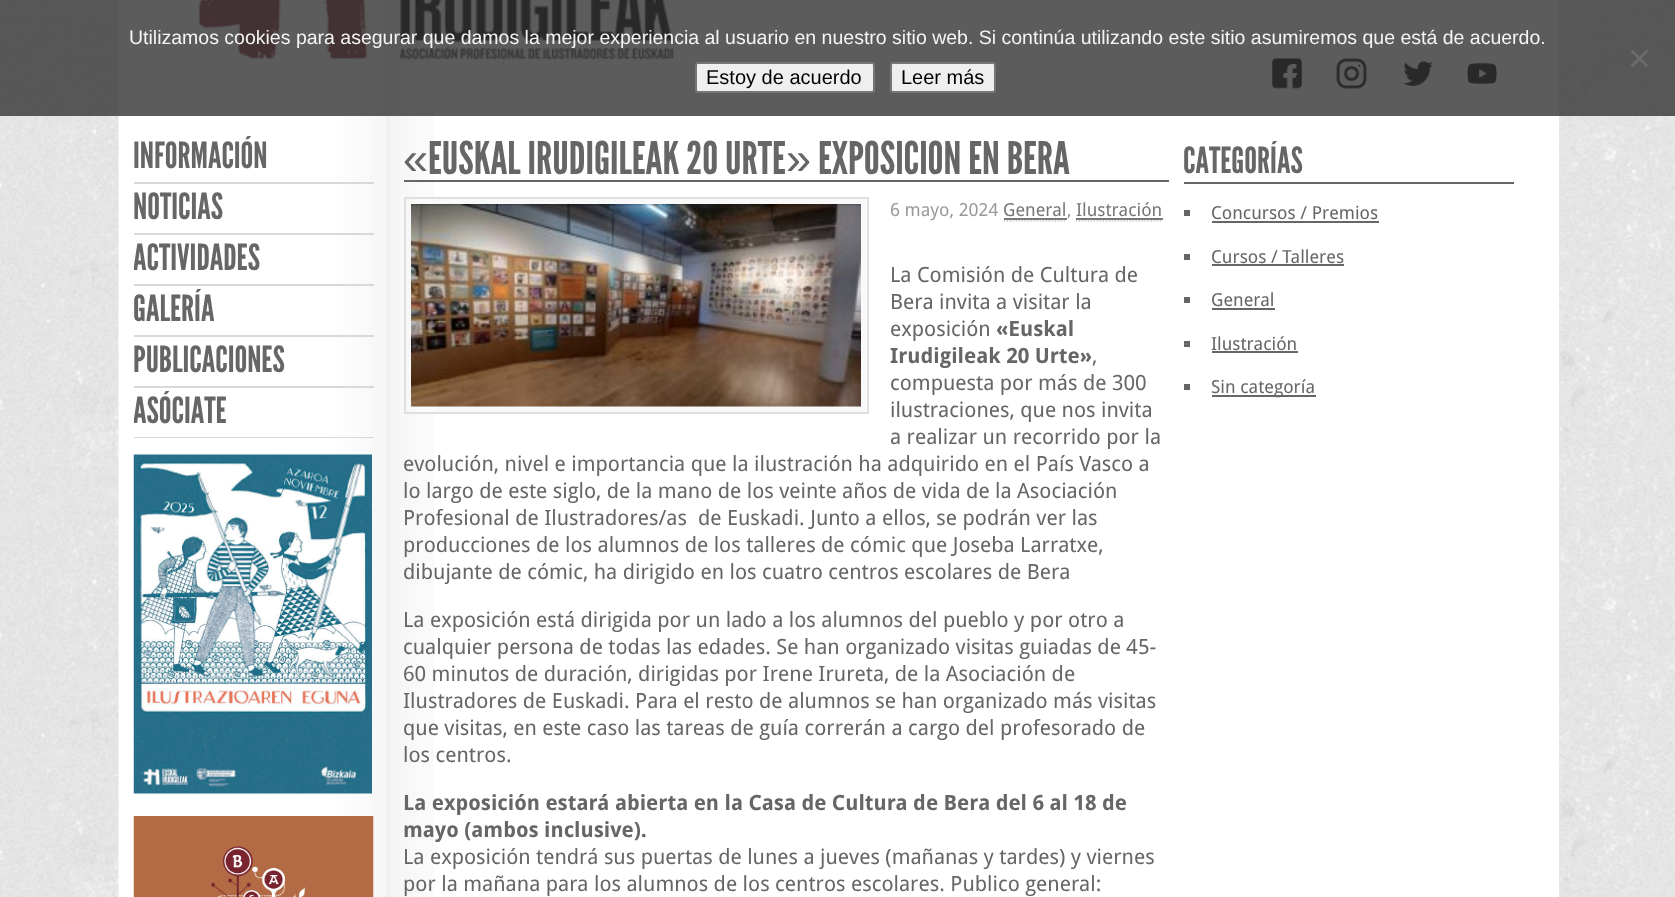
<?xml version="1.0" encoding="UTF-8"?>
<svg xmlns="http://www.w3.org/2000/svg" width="1675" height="897">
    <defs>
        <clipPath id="clip1"><rect x="134" y="132" width="240" height="306"/></clipPath>
        <clipPath id="clip2"><rect x="404" y="140" width="765" height="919"/></clipPath>
    </defs>
    <rect width="100%" height="100%" fill="#FFFFFF"/>
    <image x="0" y="0" width="1675" height="897" href="img_01.png"/>
    <rect x="434" y="0" width="1125" height="897" fill="#FFFFFF"/>
    <image x="118" y="0" width="316" height="897" href="img_02.png"/>
    <image x="198" y="0" width="476" height="61" href="img_03.png"/>
    <image x="1272" y="58" width="30" height="31" href="img_04.png"/>
    <image x="1336" y="58" width="31" height="31" href="img_05.png"/>
    <image x="1403" y="61" width="30" height="26" href="img_06.png"/>
    <image x="1467" y="63" width="30" height="21" href="img_07.png"/>
    <rect x="0" y="0" width="1675" height="116" fill="#333333" fill-opacity="0.8"/>
    <text x="129" y="44" font-family="Liberation Sans" font-size="19.5" fill="#F4F4F4">Utilizamos cookies para asegurar que damos la mejor experiencia al usuario en nuestro sitio web. Si continúa utilizando este sitio asumiremos que está de acuerdo.</text>
    <path d="M 1646.5 49.5 L 1648.5 51.5 L 1632.5 67.5 L 1630.5 65.5 Z" fill="#808080" fill-opacity="0.5"/>
    <path d="M 1630.5 51.5 L 1632.5 49.5 L 1648.5 65.5 L 1646.5 67.5 Z" fill="#6B6B6B"/>
    <rect x="696" y="63" width="178" height="29" rx="2" fill="#EFEFEF" stroke="#767676" stroke-width="2"/>
    <text x="706" y="84" font-family="Liberation Sans" font-size="20" fill="#000000">Estoy de acuerdo</text>
    <rect x="891" y="63" width="104" height="29" rx="2" fill="#EFEFEF" stroke="#767676" stroke-width="2"/>
    <text x="901" y="84" font-family="Liberation Sans" font-size="20" fill="#000000">Leer más</text>
    <rect x="134" y="182" width="240" height="2" fill="#D9D9D9"/>
    <text x="133" y="168" font-family="League Gothic" font-size="36" fill="#666666">INFORMACIÓN</text>
    <rect x="134" y="233" width="240" height="2" fill="#D9D9D9"/>
    <text x="133" y="219" font-family="League Gothic" font-size="36" fill="#666666">NOTICIAS</text>
    <rect x="134" y="284" width="240" height="2" fill="#D9D9D9"/>
    <g clip-path="url(#clip1)">
        <text x="133" y="270" font-family="League Gothic" font-size="36" fill="#666666">ACTIVIDADES</text>
    </g>
    <rect x="134" y="335" width="240" height="2" fill="#D9D9D9"/>
    <text x="133" y="321" font-family="League Gothic" font-size="36" fill="#666666">GALERÍA</text>
    <rect x="134" y="386" width="240" height="2" fill="#D9D9D9"/>
    <text x="133" y="372" font-family="League Gothic" font-size="36" fill="#666666">PUBLICACIONES</text>
    <rect x="134" y="437" width="240" height="1" fill="#D9D9D9"/>
    <g clip-path="url(#clip1)">
        <text x="133" y="423" font-family="League Gothic" font-size="36" fill="#666666">ASÓCIATE</text>
    </g>
    <image x="133" y="454" width="239" height="340" href="img_08.png"/>
    <image x="133" y="816" width="241" height="81" href="img_09.png"/>
    <rect x="404" y="180" width="765" height="2" fill="#666666"/>
    <text x="403" y="174" font-family="Liberation Sans" font-size="45" fill="#666666">«</text>
    <text x="428" y="174" font-family="League Gothic" font-size="45" fill="#666666">EUSKAL IRUDIGILEAK 20 URTE</text>
    <text x="786" y="174" font-family="Liberation Sans" font-size="45" fill="#666666">»</text>
    <g clip-path="url(#clip2)">
        <text x="818" y="174" font-family="League Gothic" font-size="45" fill="#666666">EXPOSICIÓN EN BERA</text>
    </g>
    <rect x="434" y="199" width="433" height="213" fill="#F9F9F9"/>
    <rect x="405" y="198" width="463" height="215" fill="none" stroke="#DFDFDF" stroke-width="2"/>
    <image x="411" y="204" width="450" height="203" href="img_10.png"/>
    <text x="890" y="216" font-family="Droid Sans" font-size="18" fill="#999999">6 mayo, 2024</text>
    <text x="1003" y="216" font-family="Droid Sans" font-size="18" fill="#777777">General</text>
    <path d="M 1003.5 221 H 1066.5" fill="none" stroke="#CCCCCC" stroke-width="1.5" stroke-dasharray="1.5 1.5"/>
    <rect x="1004" y="218" width="63" height="2" fill="#777777"/>
    <text x="1067" y="216" font-family="Droid Sans" font-size="18" fill="#999999">,</text>
    <text x="1076" y="216" font-family="Droid Sans" font-size="18" fill="#777777">Ilustración</text>
    <path d="M 1075.5 221 H 1162.5" fill="none" stroke="#CCCCCC" stroke-width="1.5" stroke-dasharray="1.5 1.5"/>
    <rect x="1076" y="218" width="87" height="2" fill="#777777"/>
    <text font-family="Droid Sans" font-size="21" fill="#666666">
        <tspan x="890" y="282">La Comisión de Cultura de</tspan>
        <tspan x="890" y="309">Bera invita a visitar la</tspan>
        <tspan x="890" y="336">exposición</tspan>
    </text>
    <text x="996" y="336" font-family="Droid Sans" font-size="21" font-weight="700" fill="#666666">«Euskal</text>
    <text x="890" y="363" font-family="Droid Sans" font-size="21" font-weight="700" fill="#666666">Irudigileak 20 Urte»</text>
    <text x="1092" y="363" font-family="Droid Sans" font-size="21" fill="#666666">,</text>
    <text font-family="Droid Sans" font-size="21" fill="#666666">
        <tspan x="890" y="390">compuesta por más de 300</tspan>
        <tspan x="890" y="417">ilustraciones, que nos invita</tspan>
        <tspan x="890" y="444">a realizar un recorrido por la</tspan>
    </text>
    <text font-family="Droid Sans" font-size="21" fill="#666666" xml:space="preserve"><tspan x="403" y="471">evolución, nivel e importancia que la ilustración ha adquirido en el País Vasco a</tspan><tspan x="403" y="498">lo largo de este siglo, de la mano de los veinte años de vida de la Asociación</tspan><tspan x="403" y="525">Profesional de Ilustradores/as  de Euskadi. Junto a ellos, se podrán ver las</tspan><tspan x="403" y="552">producciones de los alumnos de los talleres de cómic que Joseba Larratxe,</tspan><tspan x="403" y="579">dibujante de cómic, ha dirigido en los cuatro centros escolares de Bera</tspan></text>
    <text font-family="Droid Sans" font-size="21" fill="#666666">
        <tspan x="403" y="627">La exposición está dirigida por un lado a los alumnos del pueblo y por otro a</tspan>
        <tspan x="403" y="654">cualquier persona de todas las edades. Se han organizado visitas guiadas de 45-</tspan>
        <tspan x="403" y="681">60 minutos de duración, dirigidas por Irene Irureta, de la Asociación de</tspan>
        <tspan x="403" y="708">Ilustradores de Euskadi. Para el resto de alumnos se han organizado más visitas</tspan>
        <tspan x="403" y="735">que visitas, en este caso las tareas de guía correrán a cargo del profesorado de</tspan>
        <tspan x="403" y="762">los centros.</tspan>
    </text>
    <text font-family="Droid Sans" font-size="21" font-weight="700" fill="#666666">
        <tspan x="403" y="810">La exposición estará abierta en la Casa de Cultura de Bera del 6 al 18 de</tspan>
        <tspan x="403" y="837">mayo (ambos inclusive).</tspan>
    </text>
    <text font-family="Droid Sans" font-size="21" fill="#666666">
        <tspan x="403" y="864">La exposición tendrá sus puertas de lunes a jueves (mañanas y tardes) y viernes</tspan>
        <tspan x="403" y="891">por la mañana para los alumnos de los centros escolares. Publico general:</tspan>
    </text>
    <rect x="1184" y="182" width="330" height="2" fill="#666666"/>
    <text x="1183" y="173" font-family="League Gothic" font-size="36" fill="#666666">CATEGORÍAS</text>
    <rect x="1184" y="210" width="6" height="6" fill="#666666"/>
    <text x="1211" y="219" font-family="Droid Sans" font-size="18" fill="#666666">Concursos / Premios</text>
    <rect x="1212" y="221" width="167" height="2" fill="#666666"/>
    <rect x="1184" y="254" width="6" height="6" fill="#666666"/>
    <text x="1211" y="263" font-family="Droid Sans" font-size="18" fill="#666666">Cursos / Talleres</text>
    <rect x="1212" y="264" width="132" height="2" fill="#666666"/>
    <rect x="1184" y="297" width="6" height="6" fill="#666666"/>
    <text x="1211" y="306" font-family="Droid Sans" font-size="18" fill="#666666">General</text>
    <rect x="1212" y="308" width="63" height="2" fill="#666666"/>
    <rect x="1184" y="341" width="6" height="6" fill="#666666"/>
    <text x="1211" y="350" font-family="Droid Sans" font-size="18" fill="#666666">Ilustración</text>
    <rect x="1212" y="351" width="86" height="2" fill="#666666"/>
    <rect x="1184" y="384" width="6" height="6" fill="#666666"/>
    <rect x="1212" y="395" width="104" height="2" fill="#666666"/>
    <text x="1211" y="393" font-family="Droid Sans" font-size="18" fill="#666666">Sin categoría</text>
</svg>
